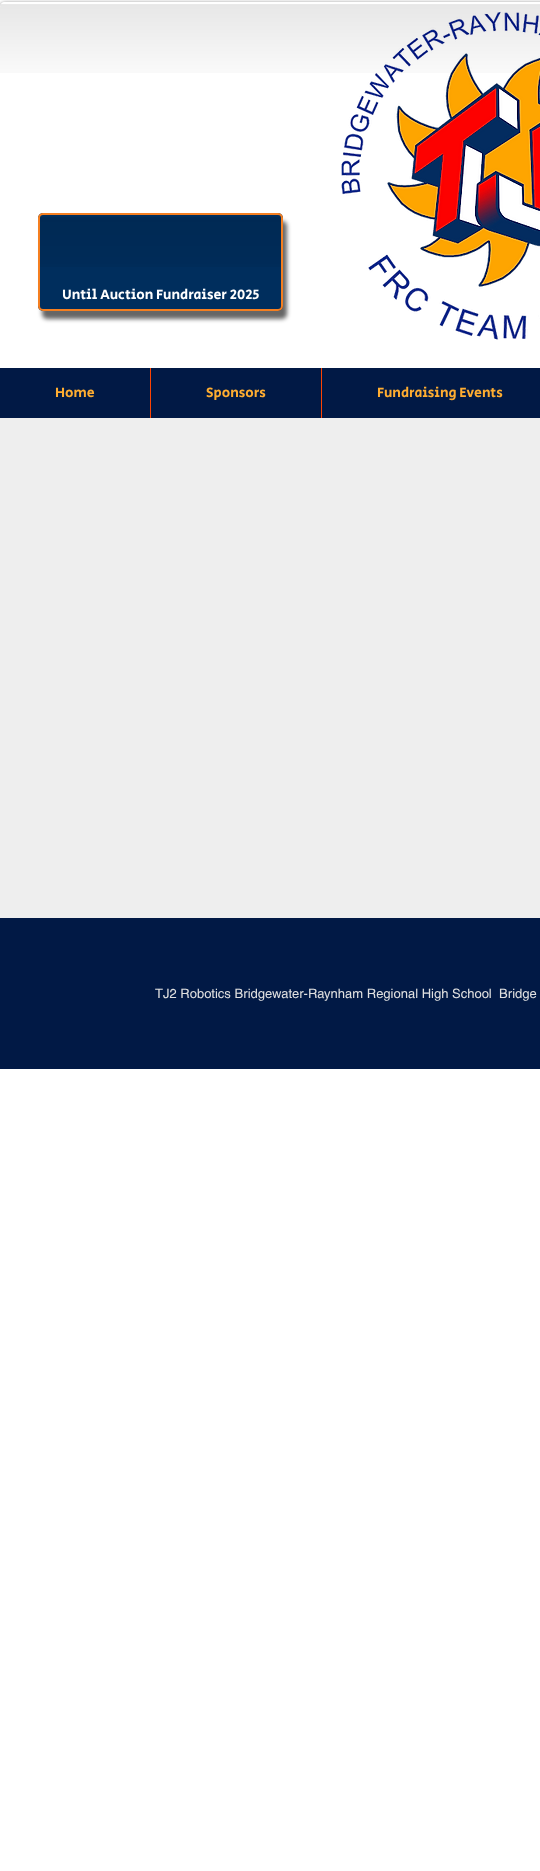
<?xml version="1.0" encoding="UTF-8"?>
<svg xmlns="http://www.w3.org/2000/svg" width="540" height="1871">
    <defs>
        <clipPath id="clip1"><path d="M 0 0 H 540 V 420 H 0 Z M 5 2 H 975 C 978 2 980 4 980 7 V 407 C 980 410 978 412 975 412 H 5 C 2 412 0 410 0 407 V 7 C 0 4 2 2 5 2 Z" clip-rule="evenodd"/></clipPath>
        <filter id="blur1" x="-50%" y="-200%" width="200%" height="500%"><feGaussianBlur stdDeviation="2"/></filter>
    </defs>
    <rect width="100%" height="100%" fill="#FFFFFF"/>
    <g clip-path="url(#clip1)">
        <rect x="0" y="3" width="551" height="410" rx="5" fill="#000000" fill-opacity="0.6" filter="url(#blur1)"/>
    </g>
    <rect x="0" y="2" width="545" height="410" rx="5" fill="#FFFFFF" fill-opacity="0.4"/>
    <image x="0" y="4" width="540" height="69" href="img_01.png"/>
    <rect x="42" y="221" width="245" height="98" rx="5" fill="#000000" fill-opacity="0.6" filter="url(#blur1)"/>
    <rect x="38" y="213" width="245" height="98" rx="5" fill="#002E5D"/>
    <image x="38" y="217" width="245" height="50" href="img_02.png"/>
    <rect x="39" y="214" width="243" height="96" rx="4" fill="none" stroke="#F57F20" stroke-width="2"/>
    <text x="62" y="299" font-family="Secular One" font-size="14" fill="#FFFFFF">Until Auction Fundraiser 2025</text>
    <image x="341" y="11" width="199" height="329" href="img_03.png"/>
    <rect x="0" y="368" width="540" height="50" fill="#011945"/>
    <text x="55" y="397" font-family="Secular One" font-size="14" fill="#FFAD31">Home</text>
    <rect x="150" y="368" width="1" height="50" fill="#FC4303"/>
    <text x="206" y="397" font-family="Secular One" font-size="14" fill="#FFAD31">Sponsors</text>
    <rect x="321" y="368" width="1" height="50" fill="#FC4303"/>
    <text x="377" y="397" font-family="Secular One" font-size="14" fill="#FFAD31">Fundraising Events</text>
    <rect x="0" y="418" width="540" height="500" fill="#EEEEEE"/>
    <rect x="0" y="918" width="540" height="151" fill="#011945"/>
    <text x="155" y="998" font-family="helvetica" font-size="13" fill="#E0E0E0" xml:space="preserve">TJ2 Robotics Bridgewater-Raynham Regional High School  Bridge</text>
</svg>
